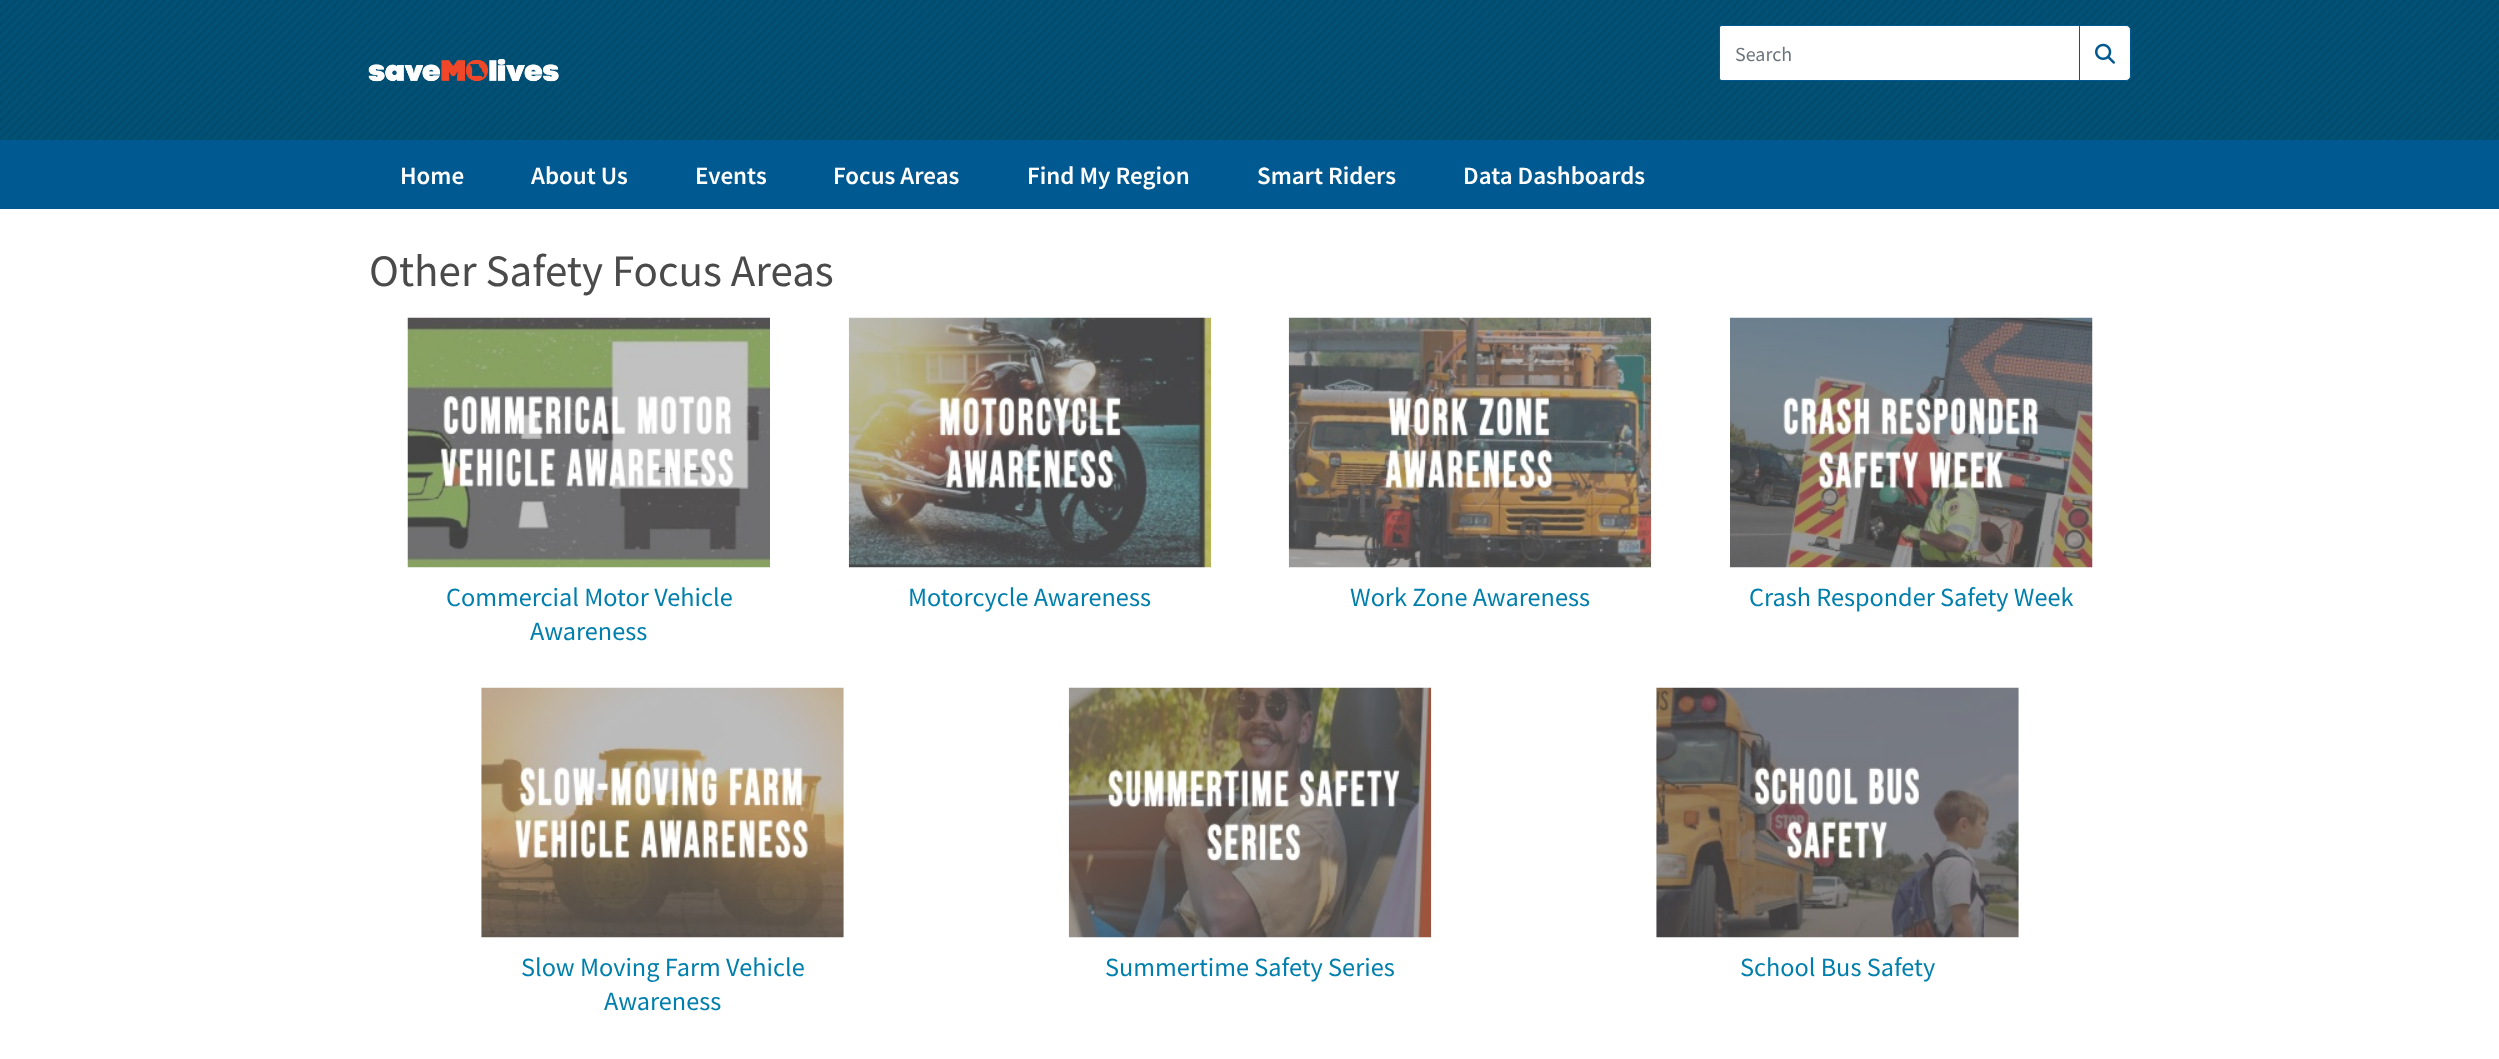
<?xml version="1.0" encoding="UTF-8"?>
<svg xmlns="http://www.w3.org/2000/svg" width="2499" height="1059">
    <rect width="100%" height="100%" fill="#FFFFFF"/>
    <image x="0" y="0" width="2499" height="140" href="img_01.png"/>
    <path d="M 1721 26 H 2079 V 80 H 1721 C 1720.5 80 1720 79.5 1720 79 V 27 C 1720 26.5 1720.5 26 1721 26 Z" fill="#FFFFFF"/>
    <path d="M 2079.5 25.5 H 2126 C 2128.5 25.5 2130.5 27.5 2130.5 30 V 76 C 2130.5 78.5 2128.5 80.5 2126 80.5 H 2079.5 Z" fill="#FFFFFF" stroke="#005990"/>
    <path d="M 1721.5 25.5 H 2079.5 V 80.5 H 1721.5 C 1720.5 80.5 1719.5 79.5 1719.5 78.5 V 27.5 C 1719.5 26.5 1720.5 25.5 1721.5 25.5 Z" fill="none" stroke="#005990"/>
    <text x="1735" y="61" font-family="Source Sans Pro" font-size="20" fill="#6C757D">Search</text>
    <image x="2095" y="43" width="20" height="21" href="img_02.png"/>
    <image x="368" y="58" width="191" height="24" href="img_03.png"/>
    <rect x="0" y="140" width="2499" height="69" fill="#005990"/>
    <text x="400" y="184" font-family="Source Sans Pro" font-size="25" font-weight="600" fill="#FFFFFF">Home</text>
    <text x="531" y="184" font-family="Source Sans Pro" font-size="25" font-weight="600" fill="#FFFFFF">About Us</text>
    <text x="695" y="184" font-family="Source Sans Pro" font-size="25" font-weight="600" fill="#FFFFFF">Events</text>
    <text x="833" y="184" font-family="Source Sans Pro" font-size="25" font-weight="600" fill="#FFFFFF">Focus Areas</text>
    <text x="1027" y="184" font-family="Source Sans Pro" font-size="25" font-weight="600" fill="#FFFFFF">Find My Region</text>
    <text x="1257" y="184" font-family="Source Sans Pro" font-size="25" font-weight="600" fill="#FFFFFF">Smart Riders</text>
    <text x="1463" y="184" font-family="Source Sans Pro" font-size="25" font-weight="600" fill="#FFFFFF">Data Dashboards</text>
    <text x="369" y="286" font-family="Source Sans Pro" font-size="45" fill="#4A4A4A">Other Safety Focus Areas</text>
    <image x="407" y="317" width="363" height="251" href="img_04.png"/>
    <text x="446" y="606" font-family="Source Sans Pro" font-size="26.25" fill="#007FAD">Commercial Motor Vehicle</text>
    <text x="530" y="640" font-family="Source Sans Pro" font-size="26.25" fill="#007FAD">Awareness</text>
    <image x="848" y="317" width="364" height="251" href="img_05.png"/>
    <text x="908" y="606" font-family="Source Sans Pro" font-size="26.25" fill="#007FAD">Motorcycle Awareness</text>
    <image x="1288" y="317" width="364" height="251" href="img_06.png"/>
    <text x="1350" y="606" font-family="Source Sans Pro" font-size="26.25" fill="#007FAD">Work Zone Awareness</text>
    <image x="1730" y="317" width="363" height="251" href="img_07.png"/>
    <text x="1749" y="606" font-family="Source Sans Pro" font-size="26.25" fill="#007FAD">Crash Responder Safety Week</text>
    <image x="481" y="687" width="363" height="251" href="img_08.png"/>
    <text x="521" y="976" font-family="Source Sans Pro" font-size="26.25" fill="#007FAD">Slow Moving Farm Vehicle</text>
    <text x="604" y="1010" font-family="Source Sans Pro" font-size="26.25" fill="#007FAD">Awareness</text>
    <image x="1068" y="687" width="364" height="251" href="img_09.png"/>
    <text x="1105" y="976" font-family="Source Sans Pro" font-size="26.25" fill="#007FAD">Summertime Safety Series</text>
    <image x="1656" y="687" width="363" height="251" href="img_10.png"/>
    <text x="1740" y="976" font-family="Source Sans Pro" font-size="26.25" fill="#007FAD">School Bus Safety</text>
</svg>
